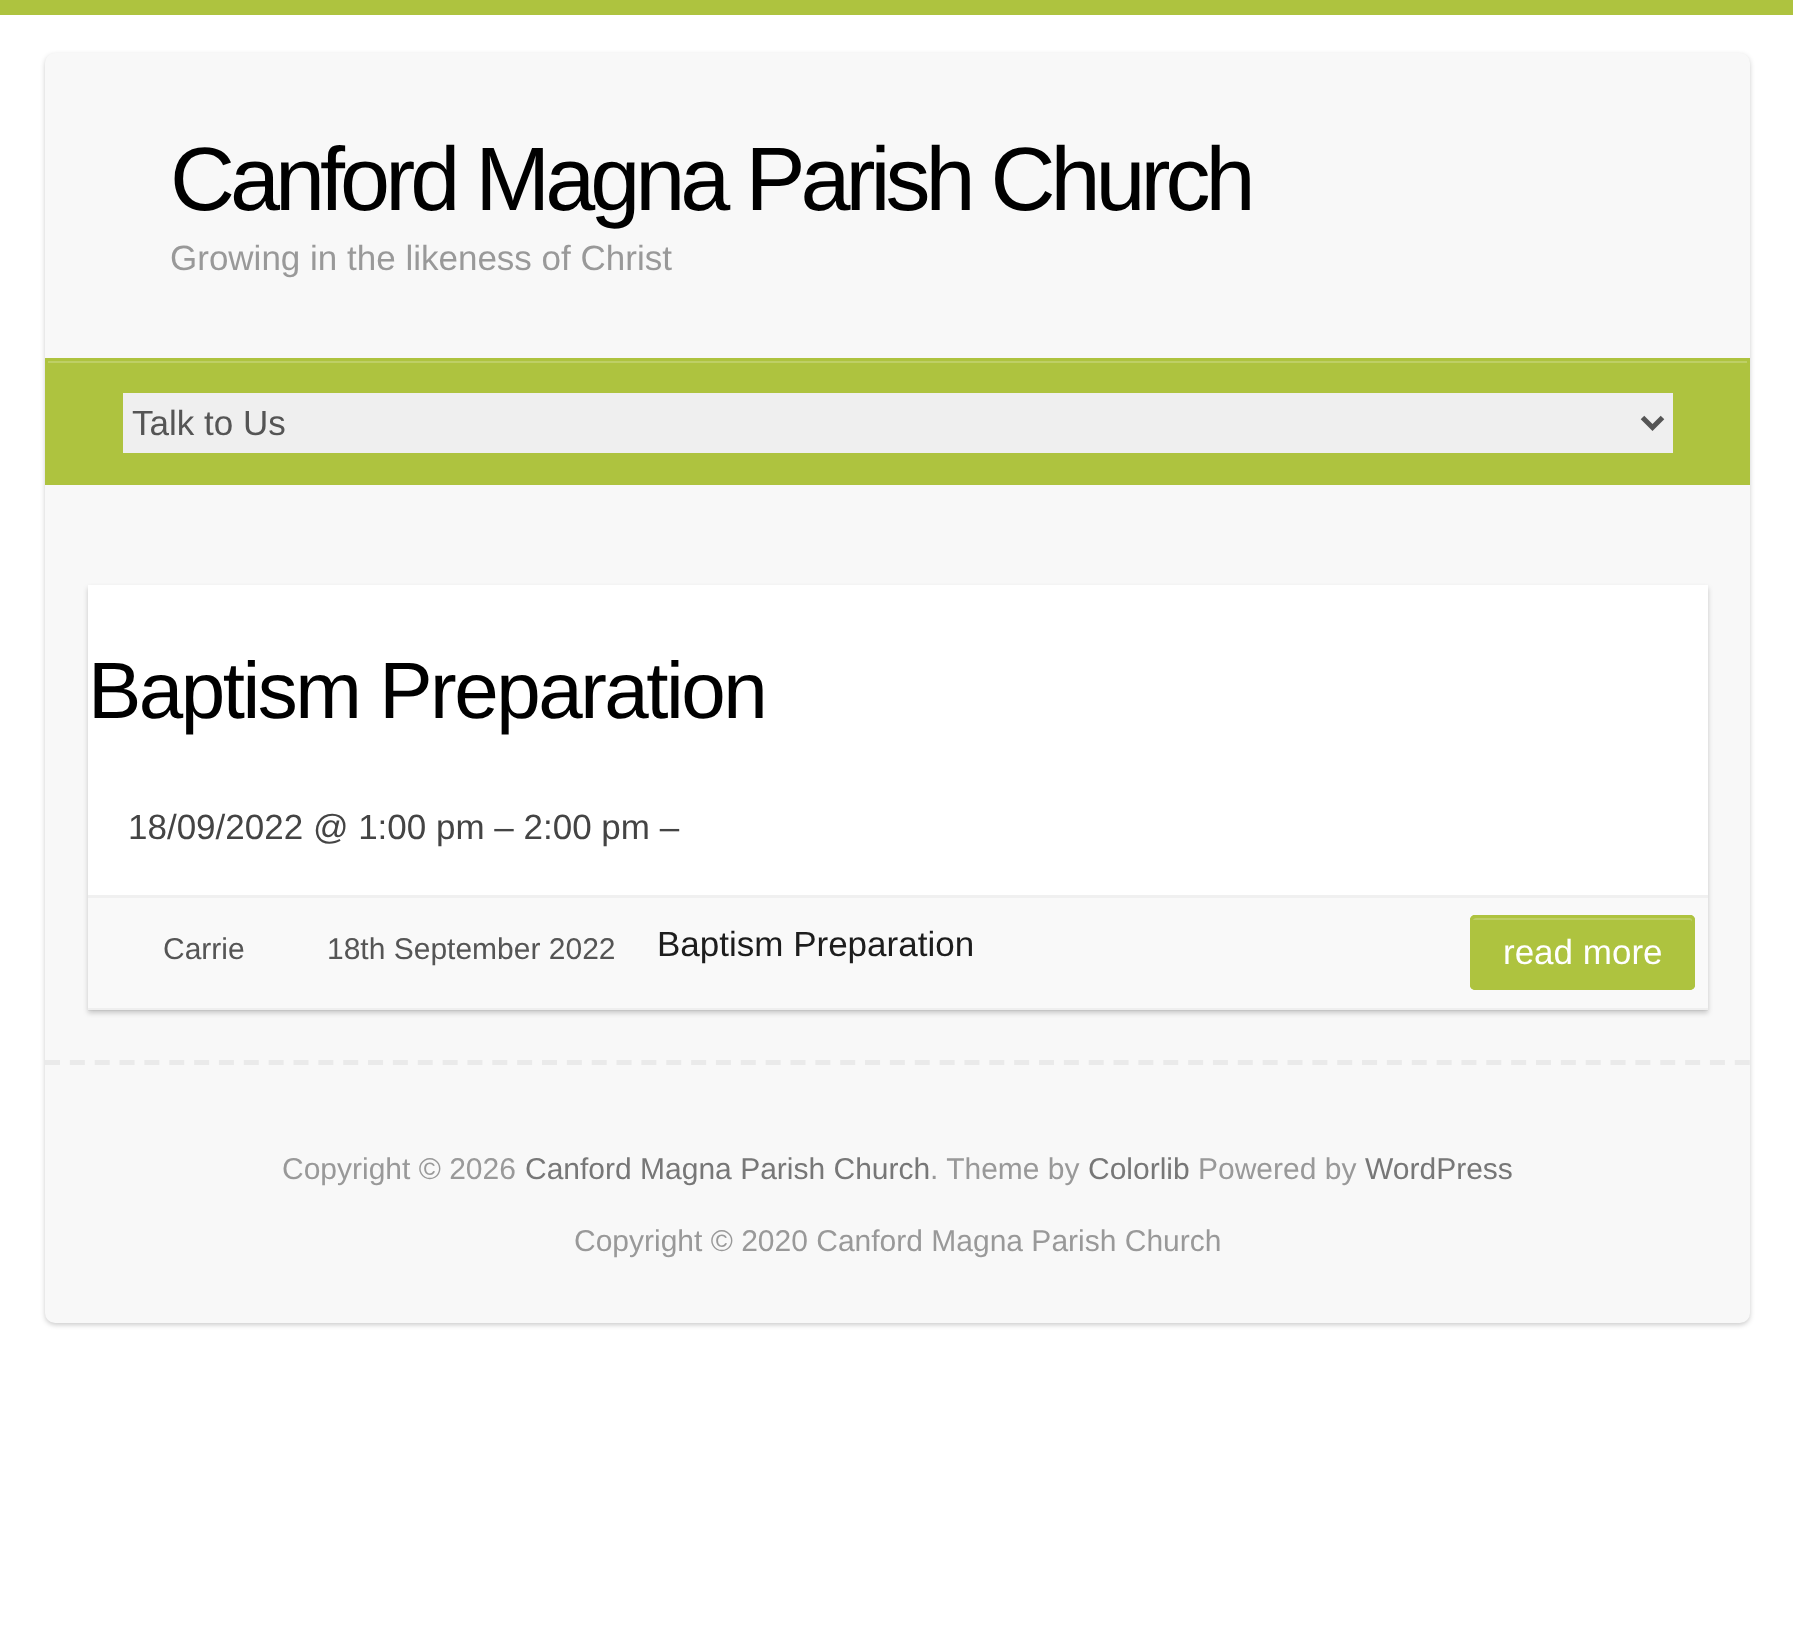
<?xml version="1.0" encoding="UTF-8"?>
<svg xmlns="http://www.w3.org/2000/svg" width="1793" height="1645">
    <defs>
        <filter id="blur1" x="-50%" y="-200%" width="200%" height="500%"><feGaussianBlur stdDeviation="2.5"/></filter>
    </defs>
    <rect width="100%" height="100%" fill="#FFFFFF"/>
    <rect x="0" y="0" width="1793" height="15" fill="#AEC33F"/>
    <rect x="45" y="55" width="1705" height="1270" rx="10" fill="#000000" fill-opacity="0.2" filter="url(#blur1)"/>
    <rect x="45" y="53" width="1705" height="1270" rx="10" fill="#F8F8F8"/>
    <text x="170" y="210" font-family="Liberation Sans" font-size="90" letter-spacing="-5" fill="#000000">Canford Magna Parish Church</text>
    <text x="170" y="270" font-family="Liberation Sans" font-size="35" fill="#999999">Growing in the likeness of Christ</text>
    <rect x="48" y="363" width="1699" height="119" fill="#AEC33F"/>
    <rect x="48" y="361" width="1700" height="2" fill="#BECF65"/>
    <rect x="46.5" y="359.5" width="1702" height="124" fill="none" stroke="#AEC33F" stroke-width="3"/>
    <rect x="123" y="393" width="1550" height="60" fill="#EFEFEF"/>
    <path d="M 1642.5 417.5 L 1652.5 427.5 L 1662.5 417.5" fill="none" stroke="#555555" stroke-width="5"/>
    <text x="132" y="435" font-family="Liberation Sans" font-size="35" fill="#555555">Talk to Us</text>
    <rect x="88" y="588" width="1620" height="425" fill="#000000" fill-opacity="0.2" filter="url(#blur1)"/>
    <rect x="88" y="585" width="1620" height="310" fill="#FFFFFF"/>
    <text x="88" y="718" font-family="Liberation Sans" font-size="80" letter-spacing="-2.5" fill="#000000">Baptism Preparation</text>
    <text x="128" y="839" font-family="Liberation Sans" font-size="35" fill="#444444">18/09/2022 @ 1:00 pm – 2:00 pm –</text>
    <rect x="88" y="898" width="1620" height="112" fill="#F9F9F9"/>
    <rect x="88" y="895" width="1620" height="3" fill="#F0F0F0"/>
    <rect x="88" y="1008" width="1620" height="3" fill="#000000" fill-opacity="0.04"/>
    <text x="163" y="959" font-family="Liberation Sans" font-size="30" fill="#555555">Carrie</text>
    <text x="327" y="959" font-family="Liberation Sans" font-size="30" fill="#555555">18th September 2022</text>
    <text x="657" y="956" font-family="Liberation Sans" font-size="35" fill="#1D1D1D">Baptism Preparation</text>
    <rect x="1470" y="915" width="225" height="75" rx="5" fill="#AEC33F"/>
    <path d="M 1475 920 H 1690 C 1691 920 1692 921 1692 922 V 988 C 1693 987 1693 986 1693 986 V 920 C 1693 919 1692 918 1690 918 H 1476 C 1474 918 1473 919 1473 920 Z" fill="#BECF65"/>
    <rect x="1471.5" y="916.5" width="222" height="72" rx="3.5" fill="none" stroke="#AEC33F" stroke-width="3"/>
    <text x="1503" y="964" font-family="Liberation Sans" font-size="35" fill="#FFFFFF">read more</text>
    <path d="M 45 1062.5 H 1750" fill="none" stroke="#EAEAEA" stroke-width="5" stroke-dasharray="15 9.85"/>
    <text x="282" y="1179" font-family="Liberation Sans" font-size="30" fill="#999999">Copyright © 2026</text>
    <text x="525" y="1179" font-family="Liberation Sans" font-size="30" fill="#777777">Canford Magna Parish Church</text>
    <text x="930" y="1179" font-family="Liberation Sans" font-size="30" fill="#999999">. Theme by</text>
    <text x="1088" y="1179" font-family="Liberation Sans" font-size="30" fill="#777777">Colorlib</text>
    <text x="1198" y="1179" font-family="Liberation Sans" font-size="30" fill="#999999">Powered by</text>
    <text x="1365" y="1179" font-family="Liberation Sans" font-size="30" fill="#777777">WordPress</text>
    <text x="574" y="1251" font-family="Liberation Sans" font-size="30" fill="#999999">Copyright © 2020 Canford Magna Parish Church</text>
</svg>
